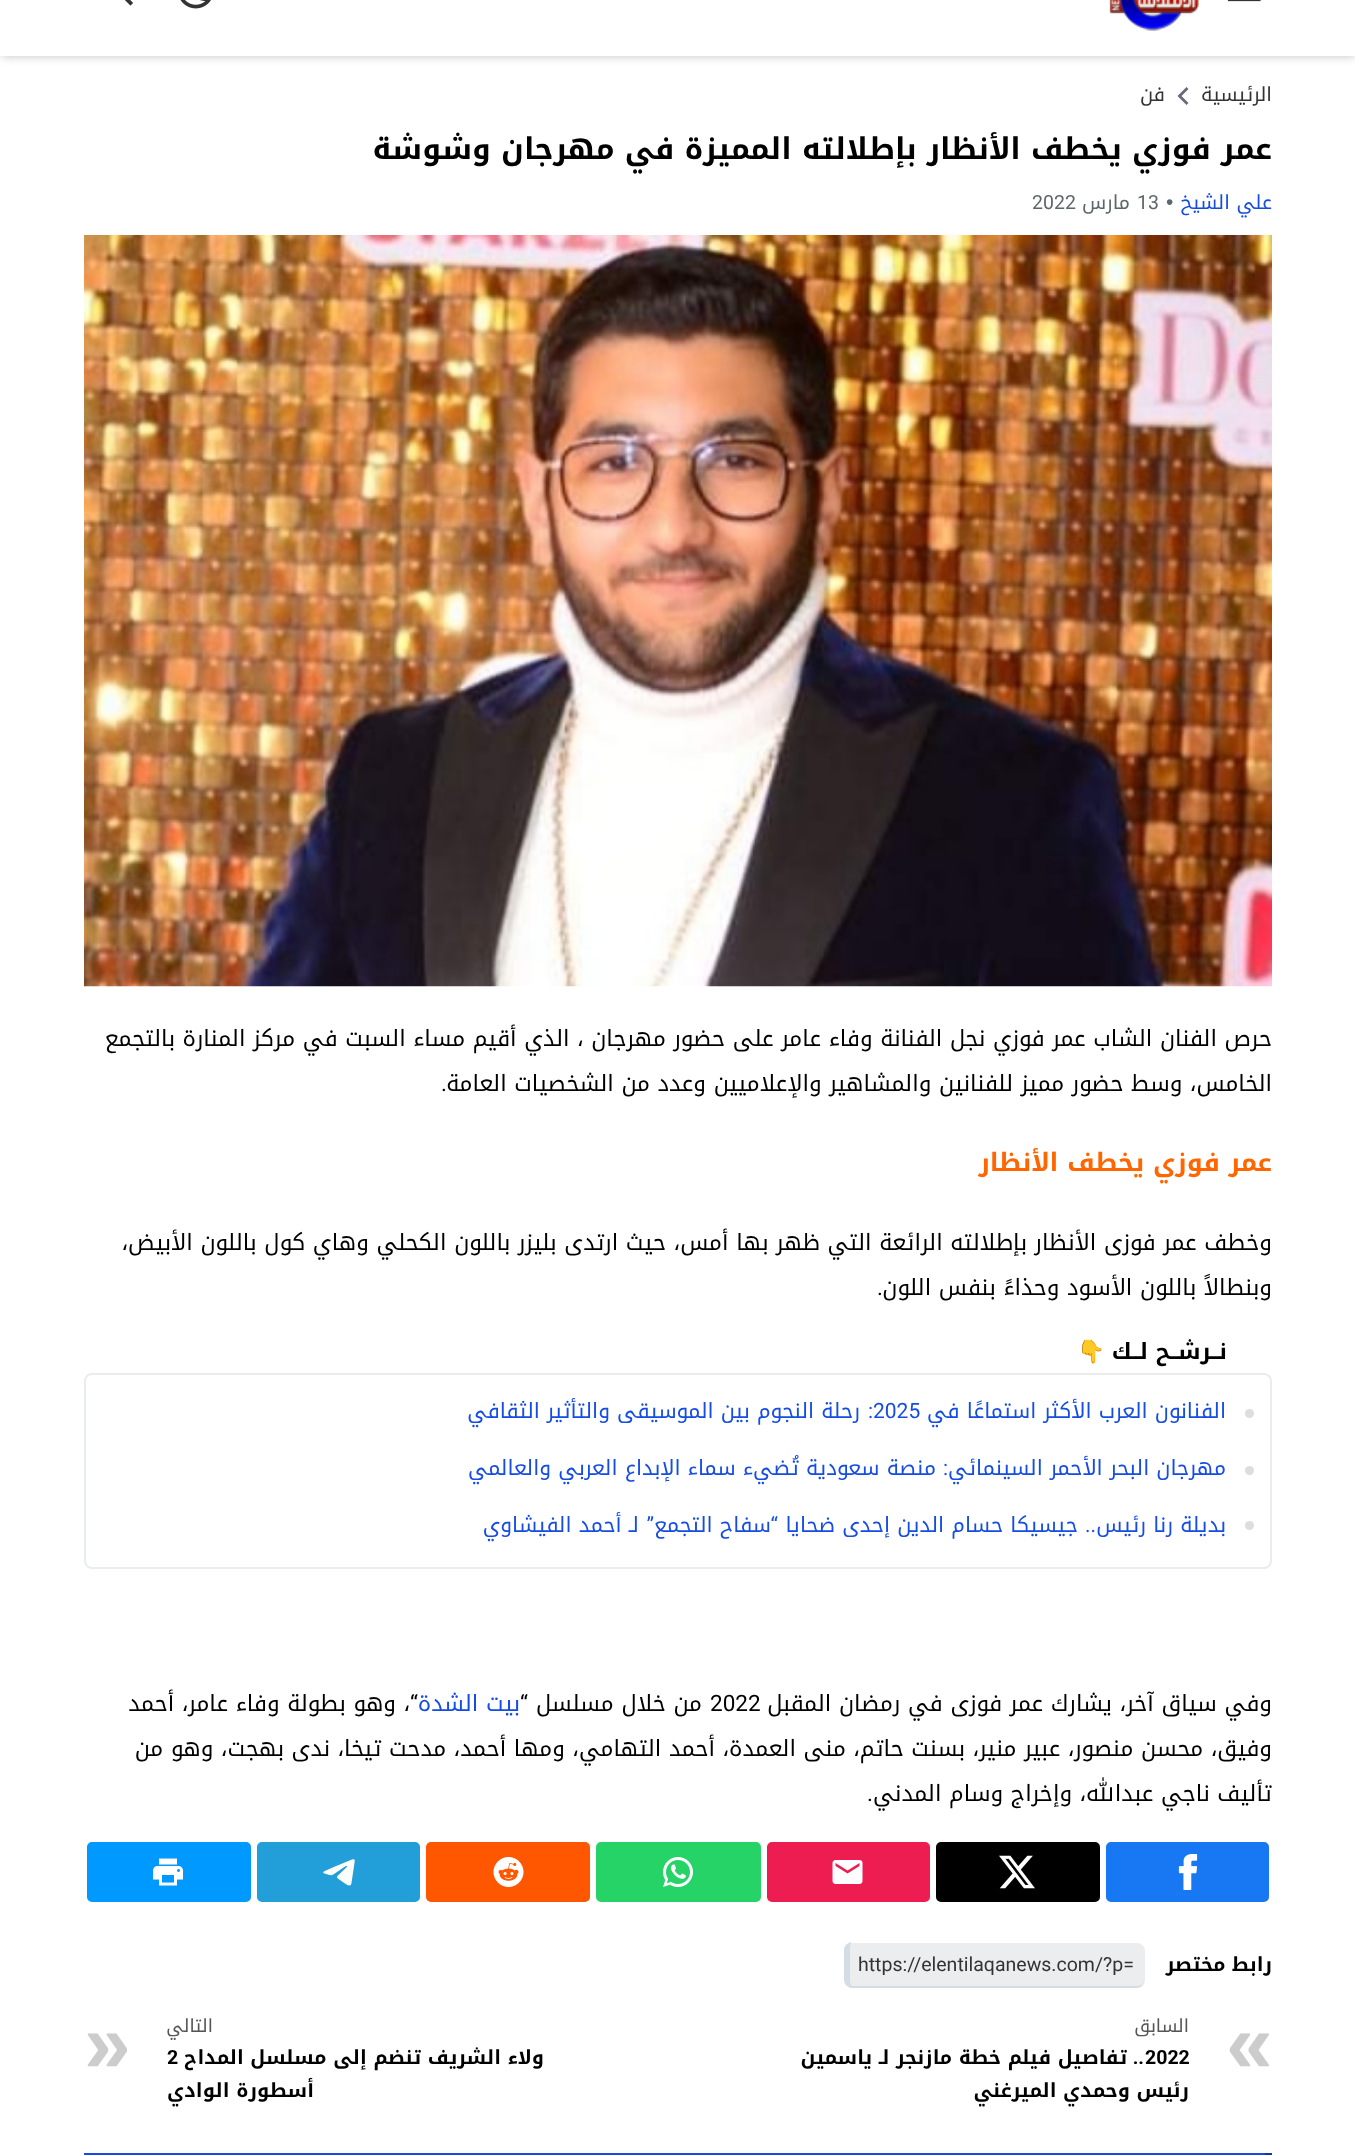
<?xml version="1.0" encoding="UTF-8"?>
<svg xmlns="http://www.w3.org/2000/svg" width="1355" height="2155">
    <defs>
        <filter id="blur1" x="-50%" y="-200%" width="200%" height="500%"><feGaussianBlur stdDeviation="4"/></filter>
    </defs>
    <rect width="100%" height="100%" fill="#FFFFFF"/>
    <rect x="2" y="-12" width="1353" height="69" fill="#CCCCCC" filter="url(#blur1)"/>
    <rect x="0" y="0" width="1355" height="56" fill="#FFFFFF"/>
    <image x="1227" y="0" width="34" height="2" href="img_01.png"/>
    <image x="1109" y="0" width="90" height="31" href="img_02.png"/>
    <image x="180" y="0" width="31" height="9" href="img_03.png"/>
    <image x="124" y="0" width="9" height="6" href="img_04.png"/>
    <text x="1272" y="101" font-family="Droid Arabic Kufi" font-size="19.5" direction="rtl" fill="#333333">الرئيسية</text>
    <path d="M 1188.5 103 L 1181.5 96 L 1188.5 89 L 1186.5 87 L 1177.5 96 L 1186.5 105 Z" fill="#656C7A"/>
    <text x="1165" y="101" font-family="Droid Arabic Kufi" font-size="19.5" direction="rtl" fill="#333333">فن</text>
    <text x="1272" y="159" font-family="Droid Arabic Kufi" font-size="30" font-weight="700" direction="rtl" fill="#000000">عمر فوزي يخطف الأنظار بإطلالته المميزة في مهرجان وشوشة</text>
    <text x="1272" y="209" font-family="Droid Arabic Kufi" font-size="19.5" direction="rtl" fill="#144CE4">علي الشيخ</text>
    <text x="1166" y="209" font-family="Liberation Sans" font-size="21" fill="#5D6769">•</text>
    <text x="1137" y="209" font-family="Roboto" font-size="19.5" fill="#5D6769">13</text>
    <text x="1130" y="209" font-family="Droid Arabic Kufi" font-size="19.5" direction="rtl" fill="#5D6769">مارس</text>
    <text x="1032" y="209" font-family="Roboto" font-size="19.5" fill="#5D6769">2022</text>
    <image x="84" y="235" width="1188" height="752" href="img_05.png"/>
    <text x="1272" y="1046" font-family="Droid Arabic Kufi" font-size="22.5" direction="rtl" fill="#000000">حرص الفنان الشاب عمر فوزي نجل الفنانة وفاء عامر على حضور مهرجان ، الذي أقيم مساء السبت في مركز المنارة بالتجمع</text>
    <text x="1272" y="1091" font-family="Droid Arabic Kufi" font-size="22.5" direction="rtl" fill="#000000">الخامس، وسط حضور مميز للفنانين والمشاهير والإعلاميين وعدد من الشخصيات العامة</text>
    <text x="447" y="1091" font-family="Roboto" font-size="22.5" direction="rtl" fill="#000000">.</text>
    <text x="1272" y="1171" font-family="Droid Arabic Kufi" font-size="25.5" font-weight="700" direction="rtl" fill="#FF6600">عمر فوزي يخطف الأنظار</text>
    <text x="1272" y="1250" font-family="Droid Arabic Kufi" font-size="22.5" direction="rtl" fill="#000000">وخطف عمر فوزى الأنظار بإطلالته الرائعة التي ظهر بها أمس، حيث ارتدى بليزر باللون الكحلي وهاي كول باللون الأبيض،</text>
    <text x="1272" y="1295" font-family="Droid Arabic Kufi" font-size="22.5" direction="rtl" fill="#000000">وبنطالاً باللون الأسود وحذاءً بنفس اللون</text>
    <text x="883" y="1295" font-family="Roboto" font-size="22.5" direction="rtl" fill="#000000">.</text>
    <text x="1227" y="1359" font-family="Droid Arabic Kufi" font-size="22.5" font-weight="700" direction="rtl" fill="#000000">نــرشــح لــك</text>
    <text x="1105" y="1359" font-family="Noto Color Emoji" font-size="22.5" font-weight="700" direction="rtl" fill="#000000">👇</text>
    <rect x="85" y="1374" width="1186" height="194" rx="7" fill="none" stroke="#E9EDF0" stroke-width="2"/>
    <circle cx="1249.5" cy="1413.5" r="4.5" fill="#DDDDDD"/>
    <text x="1226" y="1418" font-family="Droid Arabic Kufi" font-size="21" direction="rtl" fill="#144CE4">الفنانون العرب الأكثر استماعًا في</text>
    <text x="873" y="1418" font-family="Roboto" font-size="21" fill="#144CE4">2025</text>
    <text x="873" y="1418" font-family="Roboto" font-size="21" direction="rtl" fill="#144CE4">:</text>
    <text x="860" y="1418" font-family="Droid Arabic Kufi" font-size="21" direction="rtl" fill="#144CE4">رحلة النجوم بين الموسيقى والتأثير الثقافي</text>
    <circle cx="1249.5" cy="1470.5" r="4.5" fill="#DDDDDD"/>
    <text x="1226" y="1475" font-family="Droid Arabic Kufi" font-size="21" direction="rtl" fill="#144CE4">مهرجان البحر الأحمر السينمائي</text>
    <text x="948" y="1475" font-family="Roboto" font-size="21" direction="rtl" fill="#144CE4">:</text>
    <text x="936" y="1475" font-family="Droid Arabic Kufi" font-size="21" direction="rtl" fill="#144CE4">منصة سعودية تُضيء سماء الإبداع العربي والعالمي</text>
    <text x="1226" y="1532" font-family="Droid Arabic Kufi" font-size="21" direction="rtl" fill="#144CE4">بديلة رنا رئيس</text>
    <text x="1078" y="1532" font-family="Droid Arabic Kufi" font-size="21" direction="rtl" fill="#144CE4">جيسيكا حسام الدين إحدى ضحايا</text>
    <text x="778" y="1532" font-family="Roboto" font-size="21" direction="rtl" fill="#144CE4">“</text>
    <text x="771" y="1532" font-family="Droid Arabic Kufi" font-size="21" direction="rtl" fill="#144CE4">سفاح التجمع</text>
    <text x="654" y="1532" font-family="Roboto" font-size="21" direction="rtl" fill="#144CE4">”</text>
    <text x="639" y="1532" font-family="Droid Arabic Kufi" font-size="21" direction="rtl" fill="#144CE4">لـ أحمد الفيشاوي</text>
    <circle cx="1249.5" cy="1525.5" r="4.5" fill="#DDDDDD"/>
    <text x="1096" y="1532" font-family="Roboto" font-size="21" direction="rtl" fill="#144CE4">..</text>
    <text x="1272" y="1711" font-family="Droid Arabic Kufi" font-size="22.5" direction="rtl" fill="#000000">وفي سياق آخر، يشارك عمر فوزى في رمضان المقبل</text>
    <text x="710" y="1711" font-family="Roboto" font-size="22.5" fill="#000000">2022</text>
    <text x="702" y="1711" font-family="Droid Arabic Kufi" font-size="22.5" direction="rtl" fill="#000000">من خلال مسلسل</text>
    <text x="528" y="1711" font-family="Roboto" font-size="22.5" direction="rtl" fill="#000000">“</text>
    <text x="520" y="1711" font-family="Droid Arabic Kufi" font-size="22.5" direction="rtl" fill="#144CE4">بيت الشدة</text>
    <text x="418" y="1711" font-family="Roboto" font-size="22.5" direction="rtl" fill="#000000">“</text>
    <text x="410" y="1711" font-family="Droid Arabic Kufi" font-size="22.5" direction="rtl" fill="#000000">، وهو بطولة وفاء عامر، أحمد</text>
    <text x="1272" y="1756" font-family="Droid Arabic Kufi" font-size="22.5" direction="rtl" fill="#000000">وفيق، محسن منصور، عبير منير، بسنت حاتم، منى العمدة، أحمد التهامي، ومها أحمد، مدحت تيخا، ندى بهجت، وهو من</text>
    <text x="1272" y="1801" font-family="Droid Arabic Kufi" font-size="22.5" direction="rtl" fill="#000000">تأليف ناجي عبدالله، وإخراج وسام المدني</text>
    <text x="873" y="1801" font-family="Roboto" font-size="22.5" direction="rtl" fill="#000000">.</text>
    <rect x="1104.5" y="1840.5" width="166" height="63" rx="6.5" fill="#1877F2" stroke="#FFFFFF" stroke-width="3"/>
    <image x="1178" y="1854" width="20" height="36" href="img_06.png"/>
    <rect x="934.5" y="1840.5" width="167" height="63" rx="6.5" fill="#000000" stroke="#FFFFFF" stroke-width="3"/>
    <image x="999" y="1855" width="36" height="34" href="img_07.png"/>
    <rect x="765.5" y="1840.5" width="166" height="63" rx="6.5" fill="#EE1D51" stroke="#FFFFFF" stroke-width="3"/>
    <image x="832" y="1860" width="31" height="24" href="img_08.png"/>
    <rect x="594.5" y="1840.5" width="168" height="63" rx="6.5" fill="#25D366" stroke="#FFFFFF" stroke-width="3"/>
    <image x="663" y="1857" width="30" height="30" href="img_09.png"/>
    <rect x="424.5" y="1840.5" width="167" height="63" rx="6.5" fill="#FF5700" stroke="#FFFFFF" stroke-width="3"/>
    <image x="493" y="1857" width="31" height="30" href="img_10.png"/>
    <rect x="255.5" y="1840.5" width="166" height="63" rx="6.5" fill="#229ED9" stroke="#FFFFFF" stroke-width="3"/>
    <image x="323" y="1859" width="32" height="27" href="img_11.png"/>
    <rect x="85.5" y="1840.5" width="167" height="63" rx="6.5" fill="#0099FF" stroke="#FFFFFF" stroke-width="3"/>
    <image x="153" y="1858" width="30" height="28" href="img_12.png"/>
    <text x="1272" y="1971" font-family="Droid Arabic Kufi" font-size="19.5" font-weight="700" direction="rtl" fill="#000000">رابط مختصر</text>
    <rect x="845" y="1943" width="300" height="45" rx="8" fill="#EBEDEF"/>
    <path d="M 852 1942 H 1137 C 1141 1942 1144 1946 1144 1950 V 1980 C 1144 1984 1141 1988 1137 1988 H 852 C 848 1988 844 1984 844 1980 V 1950 C 844 1946 848 1942 852 1942 Z M 852 1942 H 1137 C 1141 1942 1144 1946 1144 1950 V 1980 C 1144 1983 1141 1986 1137 1986 H 852 C 851 1986 850 1983 850 1980 V 1950 C 850 1946 851 1942 852 1942 Z" fill="#D4DCE4" fill-rule="evenodd"/>
    <text x="858" y="1971" font-family="Roboto" font-size="19.5" fill="#333333">https://elentilaqanews.com/?p=</text>
    <text x="1189" y="2032" font-family="Droid Arabic Kufi" font-size="18" direction="rtl" fill="#555555">السابق</text>
    <text x="1226" y="2072" font-family="Liberation Sans" font-size="84" font-weight="700" fill="#CCCCCC">«</text>
    <text x="1145" y="2064" font-family="Roboto" font-size="19.5" font-weight="700" fill="#000000">2022</text>
    <text x="1144" y="2064" font-family="Roboto" font-size="19.5" font-weight="700" direction="rtl" fill="#000000">..</text>
    <text x="1127" y="2064" font-family="Droid Arabic Kufi" font-size="19.5" font-weight="700" direction="rtl" fill="#000000">تفاصيل فيلم خطة مازنجر لـ ياسمين</text>
    <text x="1189" y="2097" font-family="Droid Arabic Kufi" font-size="19.5" font-weight="700" direction="rtl" fill="#000000">رئيس وحمدي الميرغني</text>
    <text x="213" y="2032" font-family="Droid Arabic Kufi" font-size="18" direction="rtl" fill="#555555">التالي</text>
    <text x="544" y="2064" font-family="Droid Arabic Kufi" font-size="19.5" font-weight="700" direction="rtl" fill="#000000">ولاء الشريف تنضم إلى مسلسل المداح</text>
    <text x="167" y="2064" font-family="Roboto" font-size="19.5" font-weight="700" fill="#000000">2</text>
    <text x="84" y="2072" font-family="Liberation Sans" font-size="84" font-weight="700" fill="#CCCCCC">»</text>
    <text x="314" y="2097" font-family="Droid Arabic Kufi" font-size="19.5" font-weight="700" direction="rtl" fill="#000000">أسطورة الوادي</text>
    <rect x="84" y="2153" width="1188" height="2" fill="#144CE4"/>
    <rect x="1265" y="2153" width="7" height="2" fill="#0E35A0"/>
</svg>
